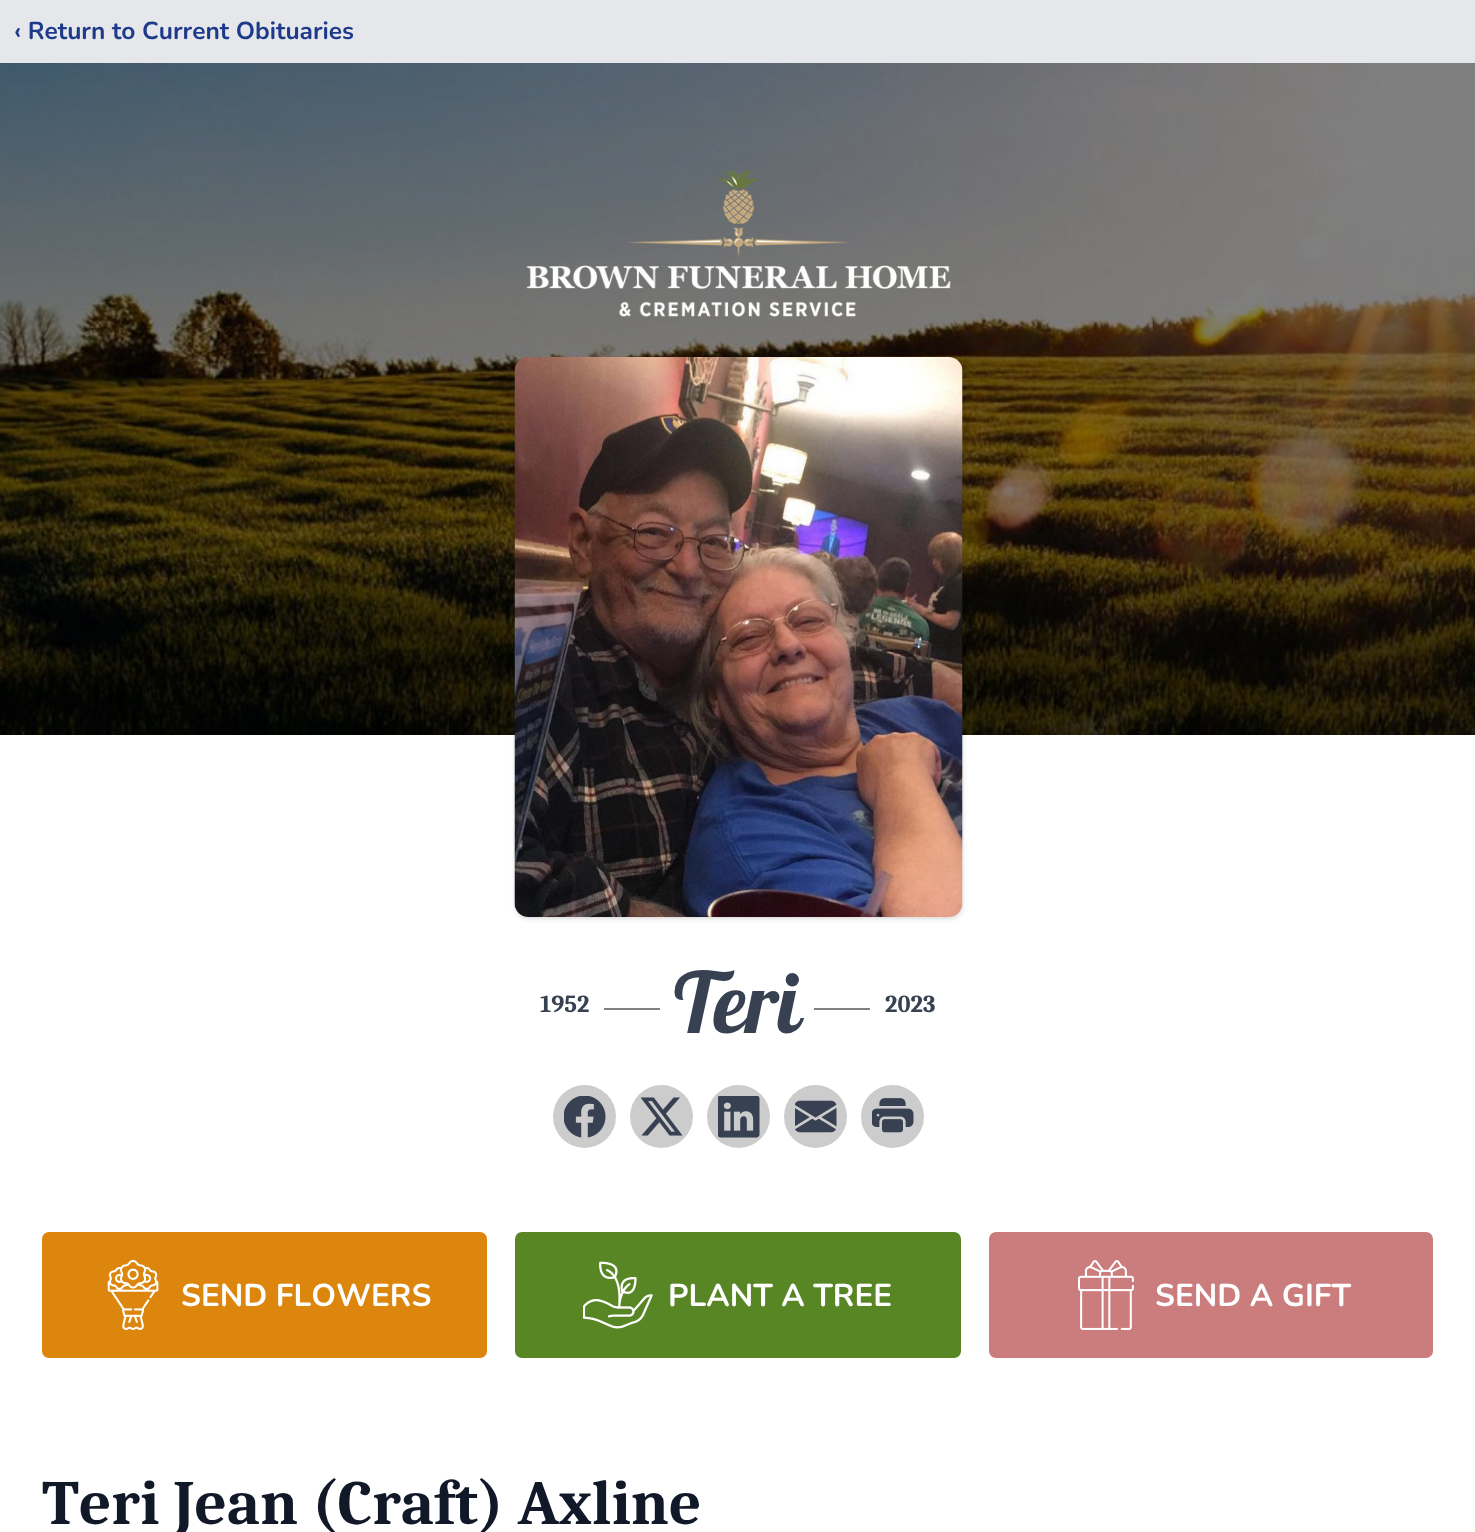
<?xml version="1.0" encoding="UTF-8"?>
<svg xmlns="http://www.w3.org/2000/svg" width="1475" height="1532">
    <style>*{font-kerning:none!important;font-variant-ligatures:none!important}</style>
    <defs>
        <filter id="blur1" x="-50%" y="-200%" width="200%" height="500%"><feGaussianBlur stdDeviation="2"/></filter>
        <filter id="blur2" x="-50%" y="-200%" width="200%" height="500%"><feGaussianBlur stdDeviation="2.5"/></filter>
    </defs>
    <rect width="100%" height="100%" fill="#FFFFFF"/>
    <rect x="0" y="0" width="1475" height="63" fill="#E5E7EB"/>
    <text x="14" y="39" font-family="Nunito" font-size="24.5" font-weight="700" fill="#1E3A8A">‹ Return to Current Obituaries</text>
    <image x="0" y="63" width="1475" height="672" href="img_01.png"/>
    <image x="526" y="170" width="425" height="147" href="img_02.png"/>
    <rect x="516" y="361" width="445" height="556" rx="12" fill="#000000" fill-opacity="0.1" filter="url(#blur1)"/>
    <rect x="515" y="359" width="448" height="560" rx="14" fill="#000000" fill-opacity="0.1" filter="url(#blur2)"/>
    <image x="514" y="357" width="449" height="560" href="img_03.png"/>
    <text x="540" y="1012" font-family="Caladea" font-size="24.5" font-weight="700" fill="#374151">1952</text>
    <rect x="604" y="1008" width="56" height="2" fill="#808080"/>
    <text x="674" y="1033" font-family="Lobster" font-size="84" fill="#374151">Teri</text>
    <rect x="814" y="1008" width="56" height="2" fill="#808080"/>
    <text x="885" y="1012" font-family="Caladea" font-size="24.5" font-weight="700" fill="#374151">2023</text>
    <circle cx="584.5" cy="1116.5" r="31.5" fill="#CCCCCC"/>
    <image x="564" y="1096" width="42" height="42" href="img_04.png"/>
    <circle cx="661.5" cy="1116.5" r="31.5" fill="#CCCCCC"/>
    <image x="641" y="1097" width="42" height="39" href="img_05.png"/>
    <circle cx="738.5" cy="1116.5" r="31.5" fill="#CCCCCC"/>
    <image x="718" y="1096" width="42" height="42" href="img_06.png"/>
    <circle cx="815.5" cy="1116.5" r="31.5" fill="#CCCCCC"/>
    <image x="795" y="1100" width="42" height="33" href="img_07.png"/>
    <circle cx="892.5" cy="1116.5" r="31.5" fill="#CCCCCC"/>
    <image x="872" y="1098" width="42" height="35" href="img_08.png"/>
    <rect x="42" y="1232" width="445" height="126" rx="7" fill="#DC860D"/>
    <image x="107" y="1260" width="52" height="70" href="img_09.png"/>
    <text x="181" y="1306" font-family="Nunito" font-size="31.5" font-weight="700" fill="#FFFFFF">SEND FLOWERS</text>
    <rect x="515" y="1232" width="446" height="126" rx="7" fill="#588624"/>
    <image x="583" y="1261" width="70" height="68" href="img_10.png"/>
    <text x="668" y="1306" font-family="Nunito" font-size="31.5" font-weight="700" fill="#FFFFFF">PLANT A TREE</text>
    <rect x="989" y="1232" width="444" height="126" rx="7" fill="#CB7C7C"/>
    <image x="1078" y="1260" width="56" height="70" href="img_11.png"/>
    <text x="1155" y="1306" font-family="Nunito" font-size="31.5" font-weight="700" fill="#FFFFFF">SEND A GIFT</text>
    <text x="42" y="1524" font-family="Caladea" font-size="63" font-weight="700" fill="#111827">Teri Jean (Craft) Axline</text>
</svg>
